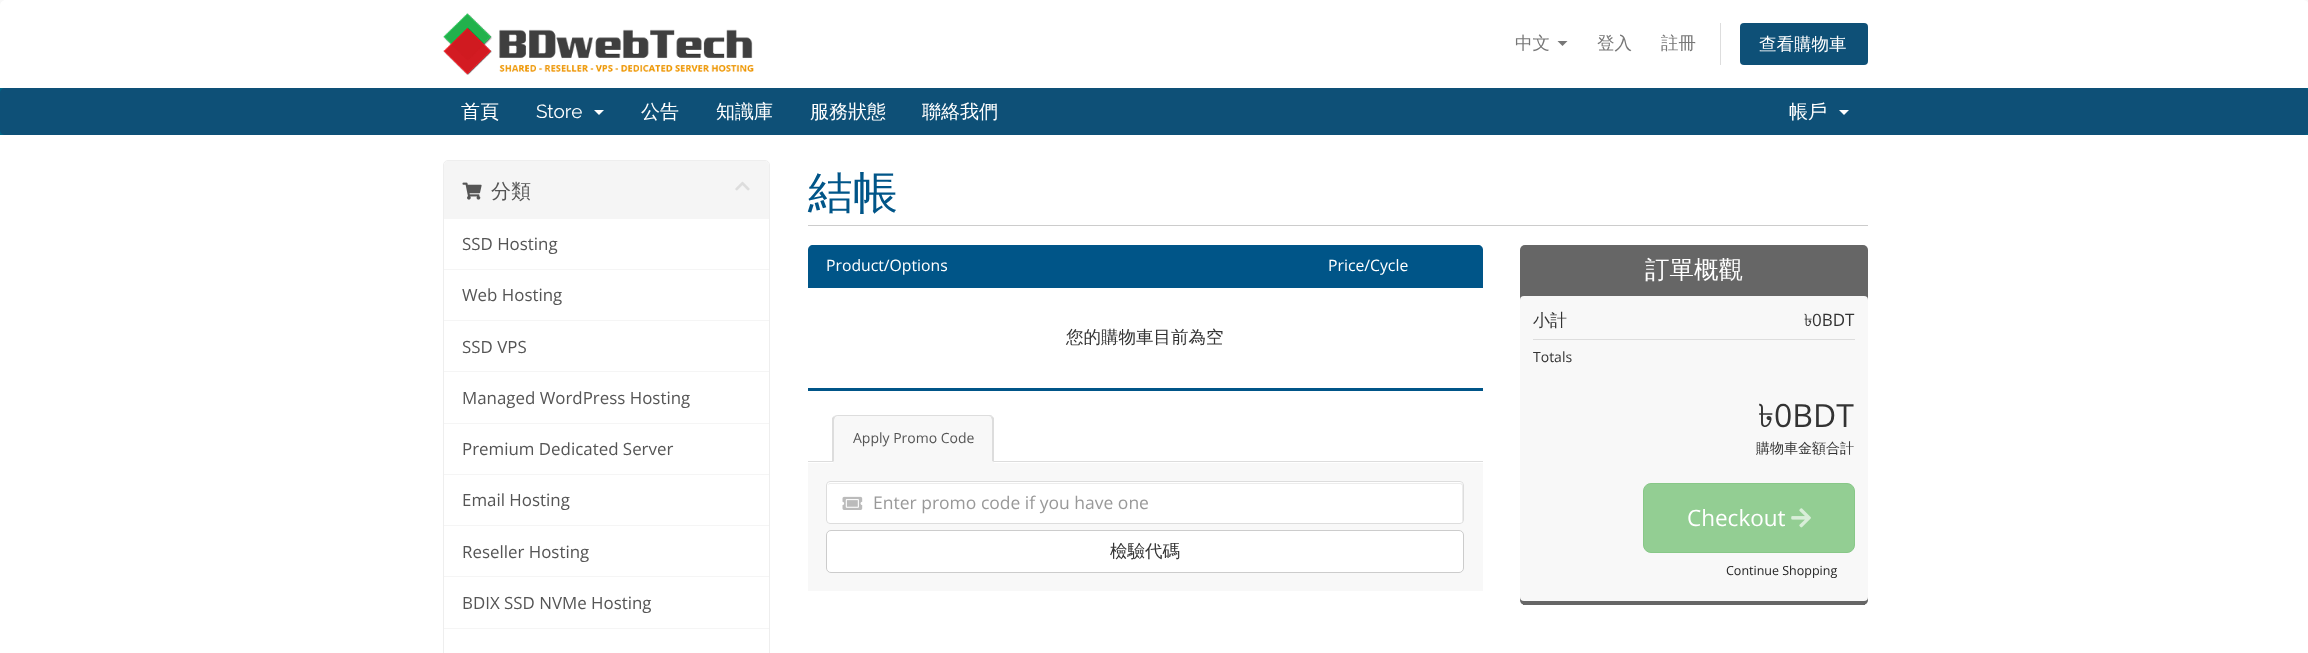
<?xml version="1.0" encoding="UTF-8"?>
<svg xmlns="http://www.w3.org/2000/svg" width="2308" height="653">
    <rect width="100%" height="100%" fill="#F8F8F8"/>
    <path d="M 6 0 H 2303 C 2306.5 0 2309 2.5 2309 6 V 88 H 0 V 6 C 0 2.5 2.5 0 6 0 Z" fill="#FFFFFF"/>
    <image x="443" y="13" width="311" height="62" href="img_01.png"/>
    <text x="1515" y="49" font-family="WenQuanYi Zen Hei" font-size="17.5" font-weight="500" fill="#777777">中文</text>
    <path d="M 1557.5 41 H 1567.5 L 1562.5 46 Z" fill="#777777"/>
    <text x="1597" y="49" font-family="WenQuanYi Zen Hei" font-size="17.5" font-weight="500" fill="#777777">登入</text>
    <text x="1661" y="49" font-family="WenQuanYi Zen Hei" font-size="17.5" font-weight="500" fill="#777777">註冊</text>
    <rect x="1720" y="23" width="1" height="42" fill="#DDDDDD"/>
    <rect x="1740" y="23" width="128" height="42" rx="4" fill="#0E5077"/>
    <text x="1759" y="50" font-family="WenQuanYi Zen Hei" font-size="17.5" font-weight="500" fill="#FFFFFF">查看購物車</text>
    <rect x="0" y="88" width="2308" height="47" fill="#006687"/>
    <rect x="0" y="88" width="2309" height="47" rx="5" fill="#0E5077"/>
    <text x="461" y="118" font-family="WenQuanYi Zen Hei" font-size="19" font-weight="500" fill="#FFFFFF">首頁</text>
    <text x="536" y="118" font-family="Raleway" font-size="19" fill="#FFFFFF">Store</text>
    <path d="M 594 110 H 604 L 599 115 Z" fill="#FFFFFF"/>
    <text x="641" y="118" font-family="WenQuanYi Zen Hei" font-size="19" font-weight="500" fill="#FFFFFF">公告</text>
    <text x="716" y="118" font-family="WenQuanYi Zen Hei" font-size="19" font-weight="500" fill="#FFFFFF">知識庫</text>
    <text x="810" y="118" font-family="WenQuanYi Zen Hei" font-size="19" font-weight="500" fill="#FFFFFF">服務狀態</text>
    <text x="922" y="118" font-family="WenQuanYi Zen Hei" font-size="19" font-weight="500" fill="#FFFFFF">聯絡我們</text>
    <text x="1789" y="118" font-family="WenQuanYi Zen Hei" font-size="19" font-weight="500" fill="#FFFFFF">帳戶</text>
    <path d="M 1839 110 H 1849 L 1844 115 Z" fill="#FFFFFF"/>
    <rect x="0" y="135" width="2308" height="518" fill="#FFFFFF"/>
    <rect x="443.5" y="160.5" width="326" height="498" rx="4.5" fill="none" stroke="#EEEEEE"/>
    <path d="M 448 161 H 765 C 767 161 769 163 769 165 V 219 H 444 V 165 C 444 163 446 161 448 161 Z" fill="#F5F5F5"/>
    <image x="462" y="182" width="20" height="18" href="img_02.png"/>
    <text x="491" y="198" font-family="WenQuanYi Zen Hei" font-size="20" font-weight="500" fill="#555555">分類</text>
    <image x="735" y="181" width="15" height="10" href="img_03.png"/>
    <rect x="444" y="269" width="325" height="1" fill="#F5F5F5"/>
    <text x="462" y="250" font-family="Open Sans" font-size="16.9" fill="#555555">SSD Hosting</text>
    <rect x="444" y="320" width="325" height="1" fill="#F5F5F5"/>
    <text x="462" y="301" font-family="Open Sans" font-size="16.9" fill="#555555">Web Hosting</text>
    <rect x="444" y="371" width="325" height="1" fill="#F5F5F5"/>
    <text x="462" y="353" font-family="Open Sans" font-size="16.9" fill="#555555">SSD VPS</text>
    <rect x="444" y="423" width="325" height="1" fill="#F5F5F5"/>
    <text x="462" y="404" font-family="Open Sans" font-size="16.9" fill="#555555">Managed WordPress Hosting</text>
    <rect x="444" y="474" width="325" height="1" fill="#F5F5F5"/>
    <text x="462" y="455" font-family="Open Sans" font-size="16.9" fill="#555555">Premium Dedicated Server</text>
    <rect x="444" y="525" width="325" height="1" fill="#F5F5F5"/>
    <text x="462" y="506" font-family="Open Sans" font-size="16.9" fill="#555555">Email Hosting</text>
    <rect x="444" y="576" width="325" height="1" fill="#F5F5F5"/>
    <text x="462" y="558" font-family="Open Sans" font-size="16.9" fill="#555555">Reseller Hosting</text>
    <rect x="444" y="628" width="325" height="1" fill="#F5F5F5"/>
    <text x="462" y="609" font-family="Open Sans" font-size="16.9" fill="#555555">BDIX SSD NVMe Hosting</text>
    <rect x="808" y="225" width="1060" height="1" fill="#CCCCCC"/>
    <text x="808" y="208" font-family="WenQuanYi Zen Hei" font-size="45" font-weight="500" fill="#005588">結帳</text>
    <path d="M 813 245 H 1478 C 1481 245 1483 247 1483 250 V 288 H 808 V 250 C 808 247 810 245 813 245 Z" fill="#005588"/>
    <text x="826" y="271" font-family="Open Sans" font-size="15.75" fill="#FFFFFF">Product/Options</text>
    <text x="1328" y="271" font-family="Open Sans" font-size="15.75" fill="#FFFFFF">Price/Cycle</text>
    <rect x="808" y="388" width="675" height="3" fill="#005588"/>
    <text x="1066" y="343" font-family="WenQuanYi Zen Hei" font-size="17.5" font-weight="500" fill="#333333">您的購物車目前為空</text>
    <rect x="808" y="461" width="675" height="1" fill="#DDDDDD"/>
    <path d="M 838 415 H 989 C 992 415 994 417 994 420 V 463 H 833 V 420 C 833 417 835 415 838 415 Z" fill="#F8F8F8"/>
    <path d="M 838 415 C 836 415 835 416 834 416 L 835 417 L 837 416 H 989 C 990 416 991 417 991 417 L 992 416 C 992 415 990 415 989 415 Z" fill="#DDDDDD"/>
    <path d="M 994 462 L 992 461 V 420 L 991 417 L 992 416 L 994 418 Z" fill="#DDDDDD"/>
    <path d="M 832 418 L 834 416 L 835 417 L 834 420 V 461 L 833 462 H 832 Z" fill="#DDDDDD"/>
    <text x="853" y="443" font-family="Open Sans" font-size="14" fill="#555555">Apply Promo Code</text>
    <rect x="808" y="463" width="675" height="128" fill="#F8F8F8"/>
    <rect x="826" y="481" width="638" height="43" rx="4" fill="#FFFFFF"/>
    <path d="M 830 484 H 1460 C 1461 484 1462 485 1462 486 V 523 C 1462 522 1463 521 1463 520 V 486 C 1463 484 1462 483 1460 483 H 830 C 829 483 828 484 828 486 C 828 485 829 484 830 484 Z" fill="#ECECEC"/>
    <rect x="826.5" y="481.5" width="637" height="42" rx="3.5" fill="none" stroke="#DDDDDD"/>
    <image x="842" y="496" width="21" height="14" href="img_04.png"/>
    <text x="873" y="509" font-family="Open Sans" font-size="17.5" fill="#999999">Enter promo code if you have one</text>
    <rect x="826.5" y="530.5" width="637" height="42" rx="4.5" fill="#FFFFFF" stroke="#CCCCCC"/>
    <text x="1110" y="557" font-family="WenQuanYi Zen Hei" font-size="17.5" font-weight="500" fill="#333333">檢驗代碼</text>
    <rect x="1520" y="245" width="348" height="360" rx="5" fill="#666666"/>
    <rect x="1523" y="604" width="342" height="1" fill="#666666"/>
    <text x="1645" y="278" font-family="WenQuanYi Zen Hei" font-size="24.5" font-weight="500" fill="#FFFFFF">訂單概觀</text>
    <rect x="1520" y="296" width="348" height="305" rx="4" fill="#F8F8F8"/>
    <rect x="1533" y="339" width="322" height="1" fill="#DDDDDD"/>
    <text x="1533" y="326" font-family="WenQuanYi Zen Hei" font-size="17" font-weight="500" fill="#333333">小計</text>
    <text x="1804" y="326" font-family="Lohit Bengali" font-size="17" fill="#333333">৳</text>
    <text x="1812" y="326" font-family="Open Sans" font-size="17" fill="#333333">0BDT</text>
    <text x="1533" y="362" font-family="Open Sans" font-size="14" fill="#333333">Totals</text>
    <text x="1758" y="427" font-family="Lohit Bengali" font-size="32" fill="#333333">৳</text>
    <text x="1774" y="427" font-family="Open Sans" font-size="32" fill="#333333">0BDT</text>
    <text x="1756" y="453" font-family="WenQuanYi Zen Hei" font-size="14" font-weight="500" fill="#333333">購物車金額合計</text>
    <rect x="1643.5" y="483.5" width="211" height="69" rx="7.5" fill="#93CE93" stroke="#88C888"/>
    <text x="1687" y="526" font-family="Open Sans" font-size="22.5" fill="#FFFFFF">Checkout</text>
    <image x="1791" y="508" width="20" height="20" href="img_05.png"/>
    <text x="1726" y="575" font-family="Open Sans" font-size="12.5" fill="#222222">Continue Shopping</text>
</svg>
